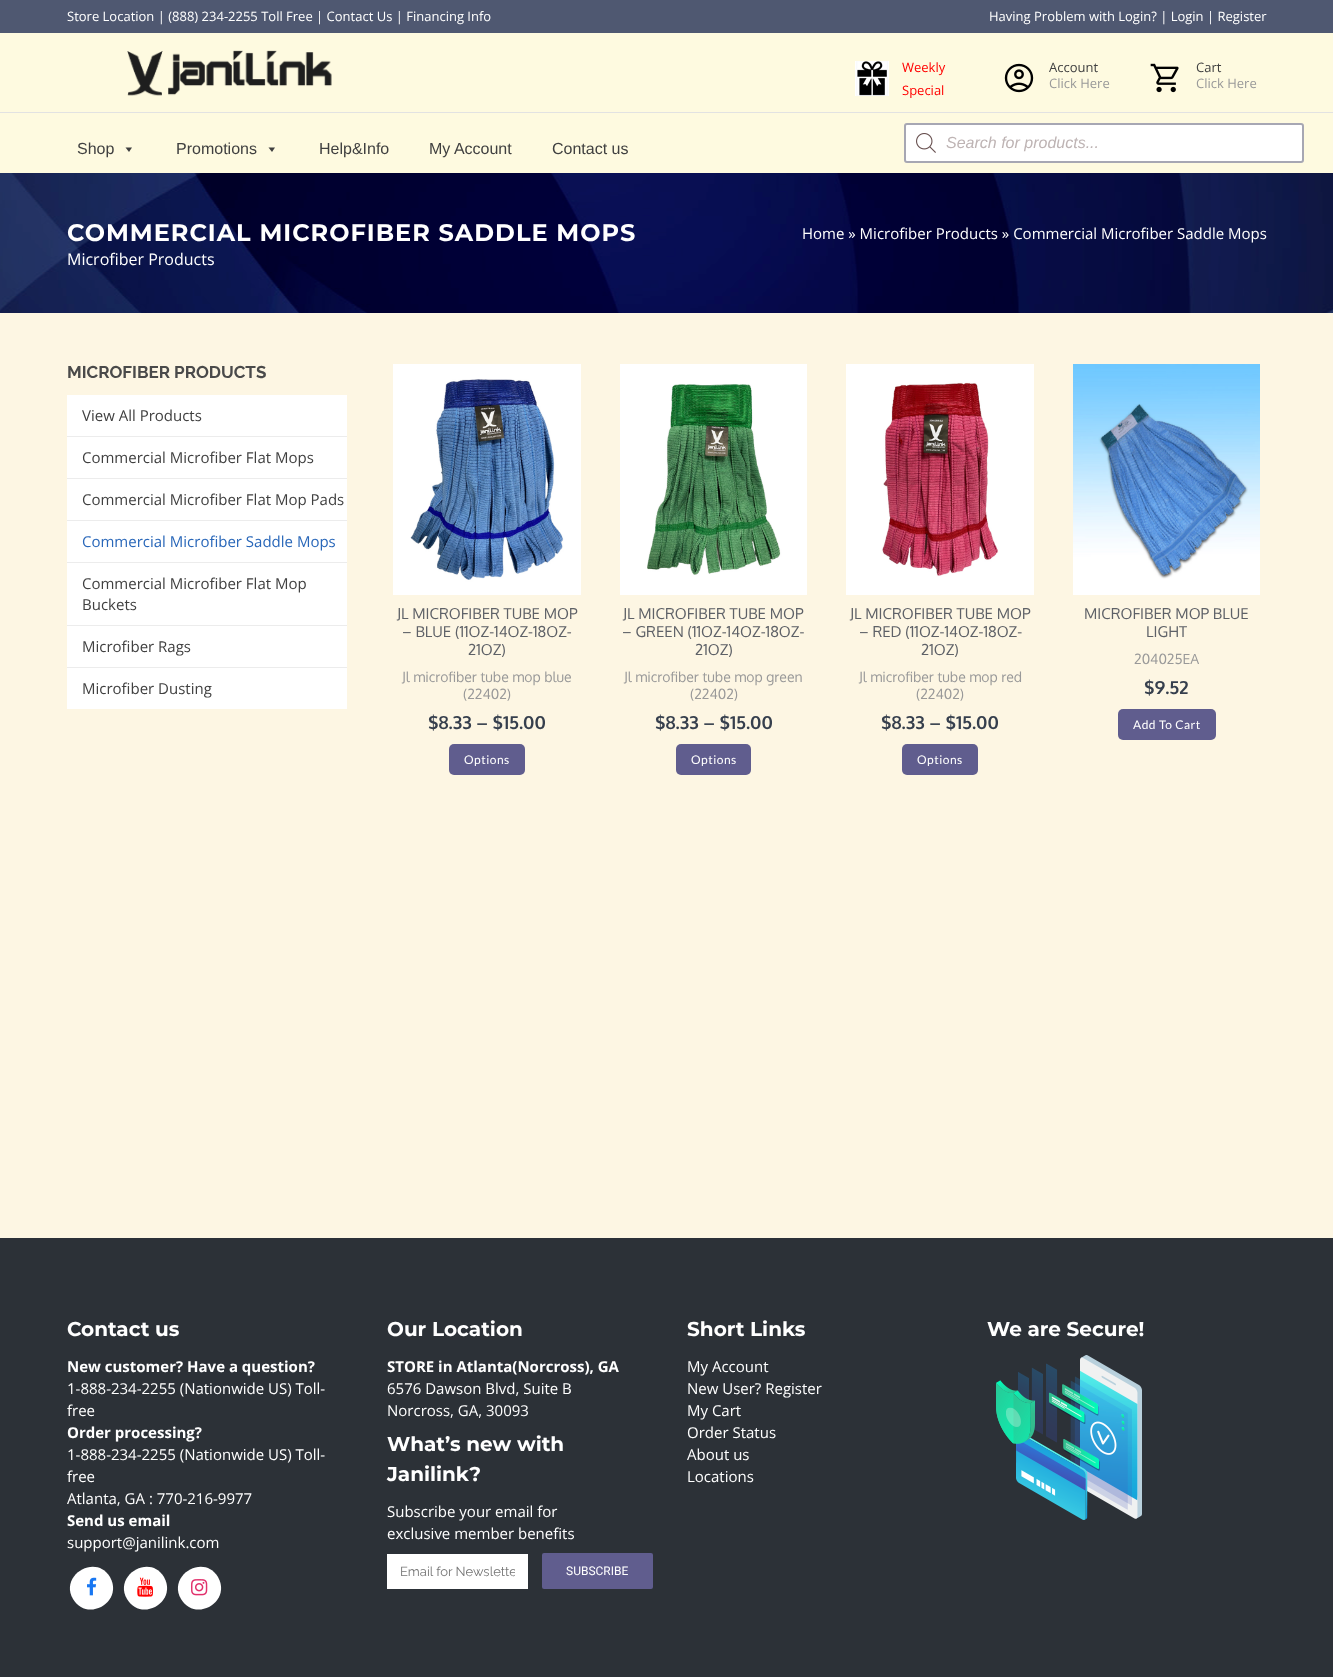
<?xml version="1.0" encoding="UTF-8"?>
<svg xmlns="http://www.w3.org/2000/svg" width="1333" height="1677">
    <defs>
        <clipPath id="clip1"><rect x="400" y="1564" width="115" height="15"/></clipPath>
    </defs>
    <rect width="100%" height="100%" fill="#FDF6E3"/>
    <rect x="0" y="0" width="1333" height="33" fill="#4F5871"/>
    <text x="67" y="21" font-family="Open Sans" font-size="13" fill="#FFFFFF">Store Location | (888) 234-2255 Toll Free | Contact Us | Financing Info</text>
    <text x="989" y="21" font-family="Open Sans" font-size="13" fill="#FFFFFF">Having Problem with Login? | Login | Register</text>
    <rect x="0" y="33" width="1333" height="140" fill="#FEFAE0"/>
    <image x="127" y="50" width="205" height="46" href="img_01.png"/>
    <image x="855" y="61" width="34" height="35" href="img_02.png"/>
    <text font-family="Open Sans" font-size="13" fill="#FF0000">
        <tspan x="902" y="72">Weekly</tspan>
        <tspan x="902" y="95">Special</tspan>
    </text>
    <image x="1004" y="63" width="30" height="30" href="img_03.png"/>
    <text x="1049" y="72" font-family="Open Sans" font-size="13" fill="#404040">Account</text>
    <text x="1049" y="88" font-family="Open Sans" font-size="13" fill="#999999">Click Here</text>
    <image x="1150" y="63" width="29" height="30" href="img_04.png"/>
    <text x="1196" y="72" font-family="Open Sans" font-size="13" fill="#404040">Cart</text>
    <text x="1196" y="88" font-family="Open Sans" font-size="13" fill="#999999">Click Here</text>
    <text x="77" y="154" font-family="Liberation Sans" font-size="16" fill="#404040">Shop</text>
    <path d="M 132 147.5 L 129 152 L 125.5 147.5 Z" fill="#3F3F3F"/>
    <text x="176" y="154" font-family="Liberation Sans" font-size="16" fill="#404040">Promotions</text>
    <path d="M 275 147.5 L 272 152 L 268.5 147.5 Z" fill="#3F3F3F"/>
    <text x="319" y="154" font-family="Liberation Sans" font-size="16" fill="#404040">Help&amp;Info</text>
    <text x="429" y="154" font-family="Liberation Sans" font-size="16" fill="#404040">My Account</text>
    <text x="552" y="154" font-family="Liberation Sans" font-size="16" fill="#404040">Contact us</text>
    <rect x="905" y="124" width="398" height="38" rx="2" fill="#FFFFFF" stroke="#A7A7B3" stroke-width="2"/>
    <image x="916" y="133" width="20" height="20" href="img_05.png"/>
    <text x="946" y="148" font-family="Liberation Sans" font-size="16" font-style="italic" fill="#BEB4B4">Search for products...</text>
    <rect x="0" y="112" width="1333" height="1" fill="#E2E2E2"/>
    <image x="0" y="173" width="1333" height="140" href="img_06.png"/>
    <text x="67" y="241" font-family="Montserrat" font-size="24" font-weight="700" letter-spacing="1" fill="#FFFFFF">COMMERCIAL MICROFIBER SADDLE MOPS</text>
    <text x="802" y="239" font-family="Open Sans" font-size="15" fill="#FFFFFF">Home » Microfiber Products » Commercial Microfiber Saddle Mops</text>
    <text x="67" y="265" font-family="Open Sans" font-size="16" fill="#FFFFFF">Microfiber Products</text>
    <text x="67" y="378" font-family="Raleway" font-size="17" font-weight="700" fill="#4A4A4A">MICROFIBER PRODUCTS</text>
    <rect x="67" y="395" width="280" height="41" fill="#FFFFFF"/>
    <rect x="67" y="436" width="280" height="1" fill="#ECECEC"/>
    <text x="82" y="421" font-family="Open Sans" font-size="15" fill="#404040">View All Products</text>
    <rect x="67" y="437" width="280" height="41" fill="#FFFFFF"/>
    <rect x="67" y="478" width="280" height="1" fill="#ECECEC"/>
    <text x="82" y="463" font-family="Open Sans" font-size="15" fill="#404040">Commercial Microfiber Flat Mops</text>
    <rect x="67" y="479" width="280" height="41" fill="#FFFFFF"/>
    <rect x="67" y="520" width="280" height="1" fill="#ECECEC"/>
    <text x="82" y="505" font-family="Open Sans" font-size="15" fill="#404040">Commercial Microfiber Flat Mop Pads</text>
    <rect x="67" y="521" width="280" height="41" fill="#FFFFFF"/>
    <rect x="67" y="562" width="280" height="1" fill="#ECECEC"/>
    <text x="82" y="547" font-family="Open Sans" font-size="15" fill="#2967B9">Commercial Microfiber Saddle Mops</text>
    <rect x="67" y="563" width="280" height="62" fill="#FFFFFF"/>
    <rect x="67" y="625" width="280" height="1" fill="#ECECEC"/>
    <text font-family="Open Sans" font-size="15" fill="#404040">
        <tspan x="82" y="589">Commercial Microfiber Flat Mop</tspan>
        <tspan x="82" y="610">Buckets</tspan>
    </text>
    <rect x="67" y="626" width="280" height="41" fill="#FFFFFF"/>
    <rect x="67" y="667" width="280" height="1" fill="#ECECEC"/>
    <text x="82" y="652" font-family="Open Sans" font-size="15" fill="#404040">Microfiber Rags</text>
    <rect x="67" y="668" width="280" height="41" fill="#FFFFFF"/>
    <text x="82" y="694" font-family="Open Sans" font-size="15" fill="#404040">Microfiber Dusting</text>
    <image x="393" y="364" width="188" height="231" href="img_07.png"/>
    <text x="397" y="619" font-family="Oxygen" font-size="15" fill="#5E6167">JL MICROFIBER TUBE MOP</text>
    <text x="402" y="637" font-family="Oxygen" font-size="15" fill="#5E6167">– BLUE (11OZ-14OZ-18OZ-</text>
    <text x="468" y="655" font-family="Oxygen" font-size="15" fill="#5E6167">21OZ)</text>
    <text x="402" y="682" font-family="Oxygen" font-size="14" fill="#999999">Jl microfiber tube mop blue</text>
    <text x="463" y="699" font-family="Oxygen" font-size="14" fill="#999999">(22402)</text>
    <text x="428" y="729" font-family="Oxygen" font-size="18" font-weight="700" fill="#363F4D">$8.33 – $15.00</text>
    <rect x="449" y="744" width="76" height="31" rx="5" fill="#605D8E"/>
    <text x="464" y="764" font-family="Lato" font-size="12" letter-spacing="0.5" fill="#FFFFFF">Options</text>
    <image x="620" y="364" width="187" height="231" href="img_08.png"/>
    <text x="623" y="619" font-family="Oxygen" font-size="15" fill="#5E6167">JL MICROFIBER TUBE MOP</text>
    <text x="622" y="637" font-family="Oxygen" font-size="15" fill="#5E6167">– GREEN (11OZ-14OZ-18OZ-</text>
    <text x="695" y="655" font-family="Oxygen" font-size="15" fill="#5E6167">21OZ)</text>
    <text x="624" y="682" font-family="Oxygen" font-size="14" fill="#999999">Jl microfiber tube mop green</text>
    <text x="690" y="699" font-family="Oxygen" font-size="14" fill="#999999">(22402)</text>
    <text x="655" y="729" font-family="Oxygen" font-size="18" font-weight="700" fill="#363F4D">$8.33 – $15.00</text>
    <rect x="676" y="744" width="75" height="31" rx="5" fill="#605D8E"/>
    <text x="691" y="764" font-family="Lato" font-size="12" letter-spacing="0.5" fill="#FFFFFF">Options</text>
    <image x="846" y="364" width="188" height="231" href="img_09.png"/>
    <text x="850" y="619" font-family="Oxygen" font-size="15" fill="#5E6167">JL MICROFIBER TUBE MOP</text>
    <text x="859" y="637" font-family="Oxygen" font-size="15" fill="#5E6167">– RED (11OZ-14OZ-18OZ-</text>
    <text x="921" y="655" font-family="Oxygen" font-size="15" fill="#5E6167">21OZ)</text>
    <text x="859" y="682" font-family="Oxygen" font-size="14" fill="#999999">Jl microfiber tube mop red</text>
    <text x="916" y="699" font-family="Oxygen" font-size="14" fill="#999999">(22402)</text>
    <text x="881" y="729" font-family="Oxygen" font-size="18" font-weight="700" fill="#363F4D">$8.33 – $15.00</text>
    <rect x="902" y="744" width="76" height="31" rx="5" fill="#605D8E"/>
    <text x="917" y="764" font-family="Lato" font-size="12" letter-spacing="0.5" fill="#FFFFFF">Options</text>
    <image x="1073" y="364" width="187" height="231" href="img_10.png"/>
    <text x="1084" y="619" font-family="Oxygen" font-size="15" fill="#5E6167">MICROFIBER MOP BLUE</text>
    <text x="1146" y="637" font-family="Oxygen" font-size="15" fill="#5E6167">LIGHT</text>
    <text x="1134" y="664" font-family="Oxygen" font-size="14" fill="#999999">204025EA</text>
    <text x="1144" y="694" font-family="Oxygen" font-size="18" font-weight="700" fill="#363F4D">$9.52</text>
    <rect x="1118" y="709" width="98" height="31" rx="5" fill="#605D8E"/>
    <text x="1133" y="729" font-family="Lato" font-size="12" letter-spacing="0.5" fill="#FFFFFF">Add To Cart</text>
    <rect x="0" y="1238" width="1333" height="439" fill="#2C3137"/>
    <text x="67" y="1336" font-family="Montserrat" font-size="20" font-weight="700" fill="#FFFFFF">Contact us</text>
    <text x="67" y="1372" font-family="Open Sans" font-size="15" font-weight="700" fill="#FFFFFF">New customer? Have a question?</text>
    <text font-family="Open Sans" font-size="15" fill="#FFFFFF">
        <tspan x="67" y="1394">1-888-234-2255 (Nationwide US) Toll-</tspan>
        <tspan x="67" y="1416">free</tspan>
    </text>
    <text x="67" y="1438" font-family="Open Sans" font-size="15" font-weight="700" fill="#FFFFFF">Order processing?</text>
    <text font-family="Open Sans" font-size="15" fill="#FFFFFF">
        <tspan x="67" y="1460">1-888-234-2255 (Nationwide US) Toll-</tspan>
        <tspan x="67" y="1482">free</tspan>
        <tspan x="67" y="1504">Atlanta, GA : 770-216-9977</tspan>
    </text>
    <text x="67" y="1526" font-family="Open Sans" font-size="15" font-weight="700" fill="#FFFFFF">Send us email</text>
    <text x="67" y="1548" font-family="Open Sans" font-size="15" fill="#FFFFFF">support@janilink.com</text>
    <path d="M 110 1577 C 124 1602 87 1623 73 1599 C 59 1575 96 1553 110 1577 Z" fill="#FFFFFF"/>
    <image x="87" y="1577" width="10" height="19" href="img_11.png"/>
    <path d="M 164 1577 C 178 1602 141 1623 127 1599 C 113 1575 150 1553 164 1577 Z" fill="#FFFFFF"/>
    <image x="137" y="1577" width="16" height="20" href="img_12.png"/>
    <path d="M 218 1577 C 232 1602 195 1623 181 1599 C 167 1575 204 1553 218 1577 Z" fill="#FFFFFF"/>
    <image x="191" y="1579" width="17" height="17" href="img_13.png"/>
    <text x="387" y="1336" font-family="Montserrat" font-size="20" font-weight="700" fill="#FFFFFF">Our Location</text>
    <text x="387" y="1372" font-family="Open Sans" font-size="15" font-weight="700" fill="#FFFFFF">STORE in Atlanta(Norcross), GA</text>
    <text font-family="Open Sans" font-size="15" fill="#FFFFFF">
        <tspan x="387" y="1394">6576 Dawson Blvd, Suite B</tspan>
        <tspan x="387" y="1416">Norcross, GA, 30093</tspan>
    </text>
    <text font-family="Montserrat" font-size="20" font-weight="700" fill="#FFFFFF">
        <tspan x="387" y="1451">What’s new with</tspan>
        <tspan x="387" y="1481">Janilink?</tspan>
    </text>
    <text font-family="Open Sans" font-size="15" fill="#FFFFFF">
        <tspan x="387" y="1517">Subscribe your email for</tspan>
        <tspan x="387" y="1539">exclusive member benefits</tspan>
    </text>
    <rect x="387" y="1554" width="141" height="35" fill="#FFFFFF"/>
    <g clip-path="url(#clip1)">
        <text x="400" y="1576" font-family="Raleway" font-size="13" fill="#757575">Email for Newslette</text>
    </g>
    <rect x="542" y="1553" width="111" height="36" rx="2" fill="#605D8E"/>
    <text x="566" y="1575" font-family="Roboto" font-size="12" fill="#FFFFFF">SUBSCRIBE</text>
    <text x="687" y="1336" font-family="Montserrat" font-size="20" font-weight="700" fill="#FFFFFF">Short Links</text>
    <text font-family="Open Sans" font-size="15" fill="#FFFFFF">
        <tspan x="687" y="1372">My Account</tspan>
        <tspan x="687" y="1394">New User? Register</tspan>
        <tspan x="687" y="1416">My Cart</tspan>
        <tspan x="687" y="1438">Order Status</tspan>
        <tspan x="687" y="1460">About us</tspan>
        <tspan x="687" y="1482">Locations</tspan>
    </text>
    <text x="987" y="1336" font-family="Montserrat" font-size="20" font-weight="700" fill="#FFFFFF">We are Secure!</text>
    <image x="996" y="1355" width="146" height="165" href="img_14.png"/>
</svg>
